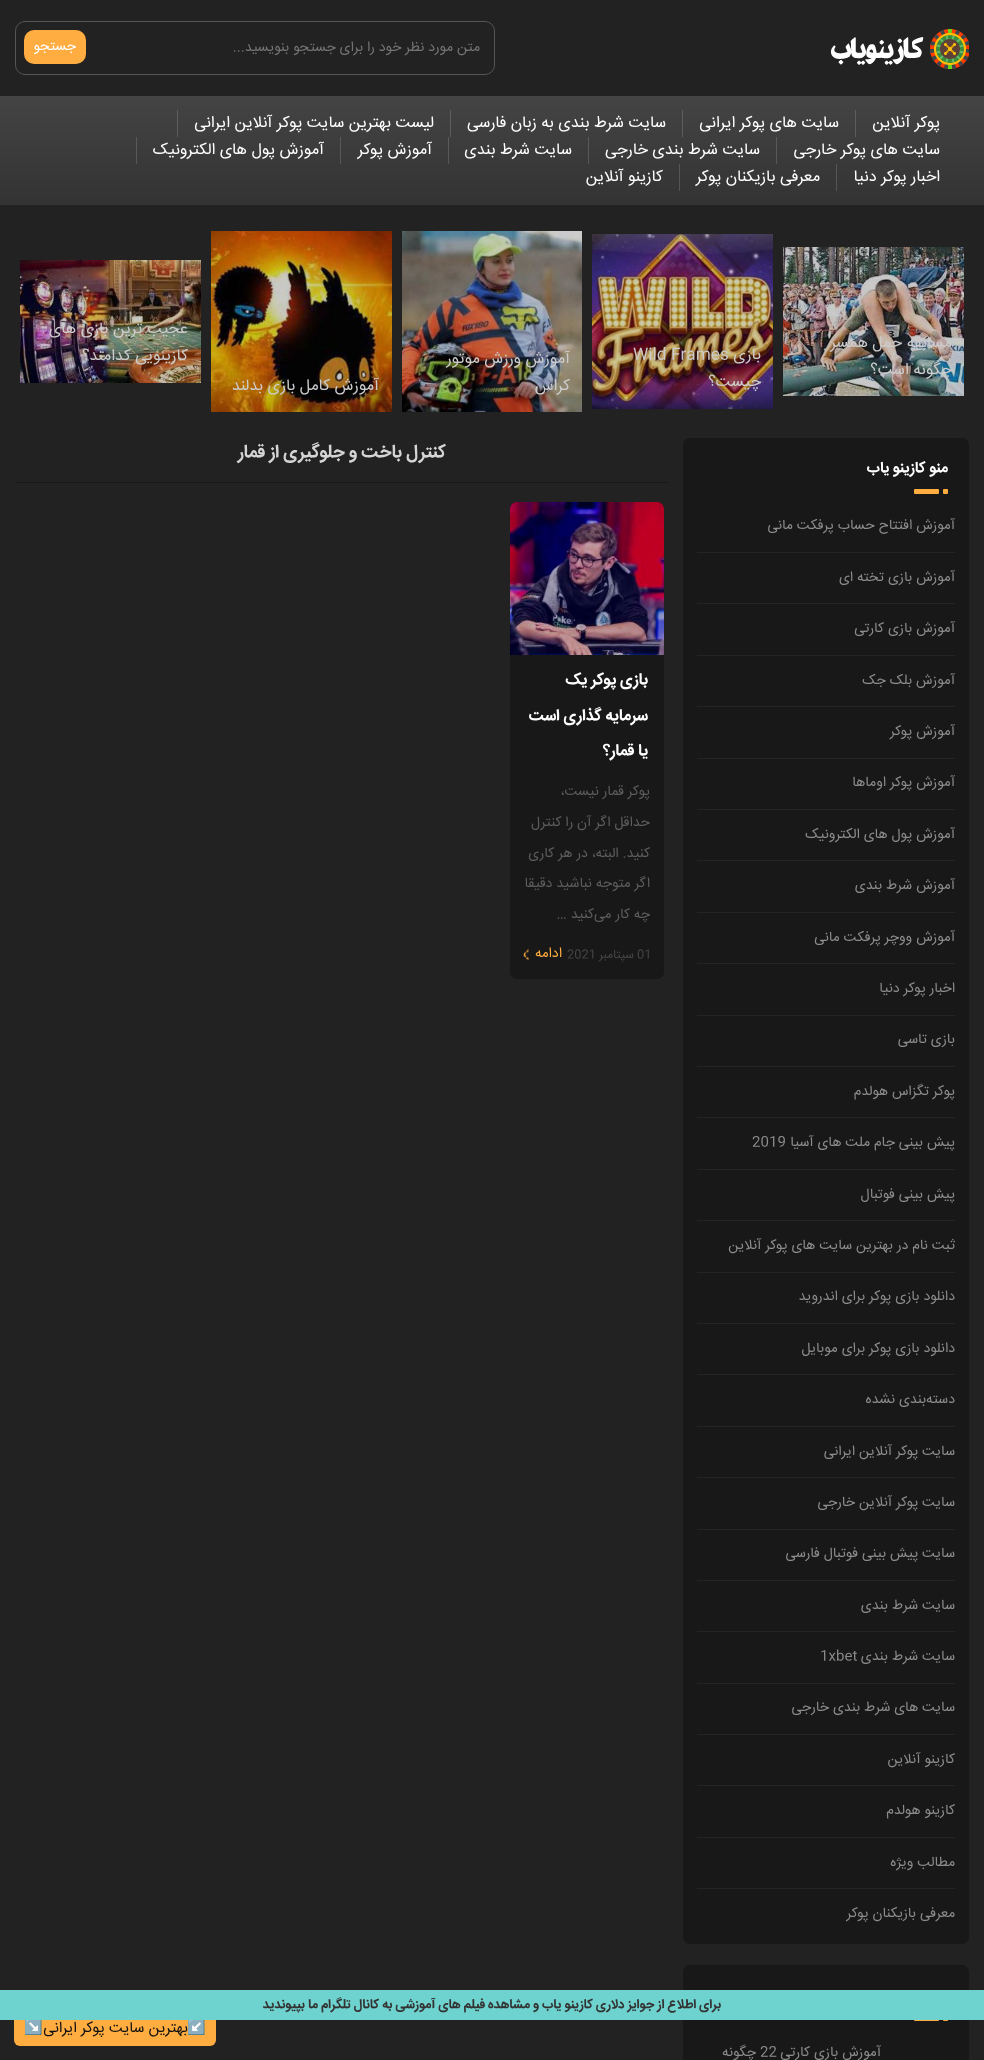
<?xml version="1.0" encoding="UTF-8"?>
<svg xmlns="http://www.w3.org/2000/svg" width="984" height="2060">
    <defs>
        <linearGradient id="g1" gradientUnits="userSpaceOnUse" x1="492" y1="205" x2="492" y2="96"><stop offset="0" stop-color="#333333"/><stop offset="1" stop-color="#444444"/></linearGradient>
        <linearGradient id="g2" gradientUnits="userSpaceOnUse" x1="492" y1="205" x2="492" y2="96"><stop offset="0" stop-color="#525252"/><stop offset="1" stop-color="#606060"/></linearGradient>
    </defs>
    <rect width="100%" height="100%" fill="#222222"/>
    <image x="831" y="29" width="138" height="40" href="img_01.png"/>
    <rect x="15.5" y="21.5" width="479" height="53" rx="9.5" fill="none" stroke="#555555"/>
    <text x="480" y="51" font-family="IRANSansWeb" font-size="14" direction="rtl" fill="#757575">متن مورد نظر خود را برای جستجو بنویسید...</text>
    <rect x="24" y="30" width="62" height="34" rx="10" fill="#FFAC41"/>
    <text x="76" y="50" font-family="IRANSansWeb" font-size="14" direction="rtl" fill="#FFFFFF">جستجو</text>
    <rect x="0" y="96" width="984" height="109" fill="url(#g1)"/>
    <rect x="679" y="164" width="1" height="27" fill="url(#g2)"/>
    <rect x="836" y="164" width="1" height="27" fill="url(#g2)"/>
    <rect x="136" y="137" width="1" height="27" fill="url(#g2)"/>
    <rect x="340" y="137" width="1" height="27" fill="url(#g2)"/>
    <rect x="448" y="137" width="1" height="27" fill="url(#g2)"/>
    <rect x="588" y="137" width="1" height="27" fill="url(#g2)"/>
    <rect x="776" y="137" width="1" height="27" fill="url(#g2)"/>
    <rect x="177" y="110" width="1" height="27" fill="url(#g2)"/>
    <rect x="450" y="110" width="1" height="27" fill="url(#g2)"/>
    <rect x="682" y="110" width="1" height="27" fill="url(#g2)"/>
    <rect x="855" y="110" width="1" height="27" fill="url(#g2)"/>
    <text x="940" y="127" font-family="IRANSansWeb" font-size="16" direction="rtl" fill="#FFFFFF">پوکر آنلاین</text>
    <text x="839" y="127" font-family="IRANSansWeb" font-size="16" direction="rtl" fill="#FFFFFF">سایت های پوکر ایرانی</text>
    <text x="666" y="127" font-family="IRANSansWeb" font-size="16" direction="rtl" fill="#FFFFFF">سایت شرط بندی به زبان فارسی</text>
    <text x="434" y="127" font-family="IRANSansWeb" font-size="16" direction="rtl" fill="#FFFFFF">لیست بهترین سایت پوکر آنلاین ایرانی</text>
    <text x="940" y="154" font-family="IRANSansWeb" font-size="16" direction="rtl" fill="#FFFFFF">سایت های پوکر خارجی</text>
    <text x="760" y="154" font-family="IRANSansWeb" font-size="16" direction="rtl" fill="#FFFFFF">سایت شرط بندی خارجی</text>
    <text x="572" y="154" font-family="IRANSansWeb" font-size="16" direction="rtl" fill="#FFFFFF">سایت شرط بندی</text>
    <text x="432" y="154" font-family="IRANSansWeb" font-size="16" direction="rtl" fill="#FFFFFF">آموزش پوکر</text>
    <text x="324" y="154" font-family="IRANSansWeb" font-size="16" direction="rtl" fill="#FFFFFF">آموزش پول های الکترونیک</text>
    <text x="940" y="181" font-family="IRANSansWeb" font-size="16" direction="rtl" fill="#FFFFFF">اخبار پوکر دنیا</text>
    <text x="820" y="181" font-family="IRANSansWeb" font-size="16" direction="rtl" fill="#FFFFFF">معرفی بازیکنان پوکر</text>
    <text x="663" y="181" font-family="IRANSansWeb" font-size="16" direction="rtl" fill="#FFFFFF">کازینو آنلاین</text>
    <image x="783" y="247" width="181" height="149" href="img_02.png"/>
    <text font-family="IRANSansWeb" font-size="16" direction="rtl" fill="#CCCCCC">
        <tspan x="952" y="347">مسابقه حمل همسر</tspan>
        <tspan x="952" y="374">چگونه است؟</tspan>
    </text>
    <image x="592" y="234" width="181" height="175" href="img_03.png"/>
    <text x="761" y="359" font-family="IRANSansWeb" font-size="16" direction="rtl" fill="#CCCCCC">بازی</text>
    <text x="633" y="359" font-family="IRANSansWeb" font-size="16" fill="#CCCCCC">Wild Frames</text>
    <text x="761" y="386" font-family="IRANSansWeb" font-size="16" direction="rtl" fill="#CCCCCC">چیست؟</text>
    <image x="402" y="231" width="180" height="181" href="img_04.png"/>
    <text font-family="IRANSansWeb" font-size="16" direction="rtl" fill="#CCCCCC">
        <tspan x="570" y="363">آموزش ورزش موتور</tspan>
        <tspan x="570" y="390">کراس</tspan>
    </text>
    <image x="211" y="231" width="181" height="181" href="img_05.png"/>
    <text x="379" y="390" font-family="IRANSansWeb" font-size="16" direction="rtl" fill="#CCCCCC">آموزش کامل بازی بدلند</text>
    <image x="20" y="260" width="181" height="123" href="img_06.png"/>
    <text font-family="IRANSansWeb" font-size="16" direction="rtl" fill="#CCCCCC">
        <tspan x="188" y="333">عجیب ترین بازی های</tspan>
        <tspan x="188" y="360">کازینویی کدامند؟</tspan>
    </text>
    <rect x="683" y="438" width="286" height="1506" rx="7" fill="#181818"/>
    <text x="948" y="472" font-family="IRANSansWeb" font-size="15" font-weight="700" direction="rtl" fill="#FFFFFF">منو کازینو یاب</text>
    <rect x="943" y="489" width="5" height="5" rx="1" fill="#FFAC41"/>
    <rect x="914" y="489" width="25" height="5" rx="1" fill="#FFAC41"/>
    <rect x="697" y="552" width="258" height="1" fill="#242424"/>
    <text x="955" y="529" font-family="IRANSansWeb" font-size="14" direction="rtl" fill="#8C8C8C">آموزش افتتاح حساب پرفکت مانی</text>
    <rect x="697" y="603" width="258" height="1" fill="#242424"/>
    <text x="955" y="581" font-family="IRANSansWeb" font-size="14" direction="rtl" fill="#8C8C8C">آموزش بازی تخته ای</text>
    <rect x="697" y="655" width="258" height="1" fill="#242424"/>
    <text x="955" y="632" font-family="IRANSansWeb" font-size="14" direction="rtl" fill="#8C8C8C">آموزش بازی کارتی</text>
    <rect x="697" y="706" width="258" height="1" fill="#242424"/>
    <text x="955" y="684" font-family="IRANSansWeb" font-size="14" direction="rtl" fill="#8C8C8C">آموزش بلک جک</text>
    <rect x="697" y="758" width="258" height="1" fill="#242424"/>
    <text x="955" y="735" font-family="IRANSansWeb" font-size="14" direction="rtl" fill="#8C8C8C">آموزش پوکر</text>
    <rect x="697" y="809" width="258" height="1" fill="#242424"/>
    <text x="955" y="786" font-family="IRANSansWeb" font-size="14" direction="rtl" fill="#8C8C8C">آموزش پوکر اوماها</text>
    <rect x="697" y="860" width="258" height="1" fill="#242424"/>
    <text x="955" y="838" font-family="IRANSansWeb" font-size="14" direction="rtl" fill="#8C8C8C">آموزش پول های الکترونیک</text>
    <rect x="697" y="912" width="258" height="1" fill="#242424"/>
    <text x="955" y="889" font-family="IRANSansWeb" font-size="14" direction="rtl" fill="#8C8C8C">آموزش شرط بندی</text>
    <rect x="697" y="963" width="258" height="1" fill="#242424"/>
    <text x="955" y="941" font-family="IRANSansWeb" font-size="14" direction="rtl" fill="#8C8C8C">آموزش ووچر پرفکت مانی</text>
    <rect x="697" y="1015" width="258" height="1" fill="#242424"/>
    <text x="955" y="992" font-family="IRANSansWeb" font-size="14" direction="rtl" fill="#8C8C8C">اخبار پوکر دنیا</text>
    <rect x="697" y="1066" width="258" height="1" fill="#242424"/>
    <text x="955" y="1043" font-family="IRANSansWeb" font-size="14" direction="rtl" fill="#8C8C8C">بازی تاسی</text>
    <rect x="697" y="1117" width="258" height="1" fill="#242424"/>
    <text x="955" y="1095" font-family="IRANSansWeb" font-size="14" direction="rtl" fill="#8C8C8C">پوکر تگزاس هولدم</text>
    <rect x="697" y="1169" width="258" height="1" fill="#242424"/>
    <text x="955" y="1146" font-family="IRANSansWeb" font-size="14" direction="rtl" fill="#8C8C8C">پیش بینی جام ملت های آسیا</text>
    <text x="752" y="1146" font-family="IRANSansWeb" font-size="14" fill="#8C8C8C">2019</text>
    <rect x="697" y="1220" width="258" height="1" fill="#242424"/>
    <text x="955" y="1198" font-family="IRANSansWeb" font-size="14" direction="rtl" fill="#8C8C8C">پیش بینی فوتبال</text>
    <rect x="697" y="1272" width="258" height="1" fill="#242424"/>
    <text x="955" y="1249" font-family="IRANSansWeb" font-size="14" direction="rtl" fill="#8C8C8C">ثبت نام در بهترین سایت های پوکر آنلاین</text>
    <rect x="697" y="1323" width="258" height="1" fill="#242424"/>
    <text x="955" y="1300" font-family="IRANSansWeb" font-size="14" direction="rtl" fill="#8C8C8C">دانلود بازی پوکر برای اندروید</text>
    <rect x="697" y="1374" width="258" height="1" fill="#242424"/>
    <text x="955" y="1352" font-family="IRANSansWeb" font-size="14" direction="rtl" fill="#8C8C8C">دانلود بازی پوکر برای موبایل</text>
    <rect x="697" y="1426" width="258" height="1" fill="#242424"/>
    <text x="955" y="1403" font-family="IRANSansWeb" font-size="14" direction="rtl" fill="#8C8C8C">دسته‌بندی نشده</text>
    <rect x="697" y="1477" width="258" height="1" fill="#242424"/>
    <text x="955" y="1455" font-family="IRANSansWeb" font-size="14" direction="rtl" fill="#8C8C8C">سایت پوکر آنلاین ایرانی</text>
    <rect x="697" y="1529" width="258" height="1" fill="#242424"/>
    <text x="955" y="1506" font-family="IRANSansWeb" font-size="14" direction="rtl" fill="#8C8C8C">سایت پوکر آنلاین خارجی</text>
    <rect x="697" y="1580" width="258" height="1" fill="#242424"/>
    <text x="955" y="1557" font-family="IRANSansWeb" font-size="14" direction="rtl" fill="#8C8C8C">سایت پیش بینی فوتبال فارسی</text>
    <rect x="697" y="1631" width="258" height="1" fill="#242424"/>
    <text x="955" y="1609" font-family="IRANSansWeb" font-size="14" direction="rtl" fill="#8C8C8C">سایت شرط بندی</text>
    <rect x="697" y="1683" width="258" height="1" fill="#242424"/>
    <text x="955" y="1660" font-family="IRANSansWeb" font-size="14" direction="rtl" fill="#8C8C8C">سایت شرط بندی</text>
    <text x="820" y="1660" font-family="IRANSansWeb" font-size="14" fill="#8C8C8C">1xbet</text>
    <rect x="697" y="1734" width="258" height="1" fill="#242424"/>
    <text x="955" y="1711" font-family="IRANSansWeb" font-size="14" direction="rtl" fill="#8C8C8C">سایت های شرط بندی خارجی</text>
    <rect x="697" y="1785" width="258" height="1" fill="#242424"/>
    <text x="955" y="1763" font-family="IRANSansWeb" font-size="14" direction="rtl" fill="#8C8C8C">کازینو آنلاین</text>
    <rect x="697" y="1837" width="258" height="1" fill="#242424"/>
    <text x="955" y="1814" font-family="IRANSansWeb" font-size="14" direction="rtl" fill="#8C8C8C">کازینو هولدم</text>
    <rect x="697" y="1888" width="258" height="1" fill="#242424"/>
    <text x="955" y="1866" font-family="IRANSansWeb" font-size="14" direction="rtl" fill="#8C8C8C">مطالب ویژه</text>
    <text x="955" y="1917" font-family="IRANSansWeb" font-size="14" direction="rtl" fill="#8C8C8C">معرفی بازیکنان پوکر</text>
    <rect x="683" y="1965" width="286" height="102" rx="7" fill="#181818"/>
    <rect x="943" y="2016" width="5" height="5" rx="1" fill="#FFAC41"/>
    <rect x="914" y="2016" width="25" height="5" rx="1" fill="#FFAC41"/>
    <text x="881" y="2056" font-family="IRANSansWeb" font-size="14" direction="rtl" fill="#8C8C8C">آموزش بازی کارتی</text>
    <text x="760" y="2056" font-family="IRANSansWeb" font-size="14" fill="#8C8C8C">22</text>
    <text x="756" y="2056" font-family="IRANSansWeb" font-size="14" direction="rtl" fill="#8C8C8C">چگونه</text>
    <rect x="15" y="482" width="654" height="1" fill="#181818"/>
    <text x="446" y="457" font-family="IRANSansWeb" font-size="18" font-weight="700" direction="rtl" fill="#D5D5D5">کنترل باخت و جلوگیری از قمار</text>
    <rect x="510" y="502" width="154" height="477" rx="7" fill="#181818"/>
    <image x="510" y="502" width="154" height="153" href="img_07.png"/>
    <path d="M 517 502 H 657 C 661 502 664 505 664 509 V 655 H 510 V 509 C 510 505 513 502 517 502 Z" fill="#000000" fill-opacity="0.2"/>
    <text x="648" y="684" font-family="IRANSansWeb" font-size="16" font-weight="700" direction="rtl" fill="#FFFFFF">بازی پوکر یک</text>
    <text x="648" y="720" font-family="IRANSansWeb" font-size="16" font-weight="700" direction="rtl" fill="#FFFFFF">سرمایه گذاری است</text>
    <text x="648" y="755" font-family="IRANSansWeb" font-size="16" font-weight="700" direction="rtl" fill="#FFFFFF">یا قمار؟</text>
    <text x="650" y="795" font-family="IRANSansWeb" font-size="14" direction="rtl" fill="#5D5D5D">پوکر قمار نیست،</text>
    <text x="650" y="826" font-family="IRANSansWeb" font-size="14" direction="rtl" fill="#5D5D5D">حداقل اگر آن را کنترل</text>
    <text x="650" y="857" font-family="IRANSansWeb" font-size="14" direction="rtl" fill="#5D5D5D">کنید. البته، در هر کاری</text>
    <text x="650" y="887" font-family="IRANSansWeb" font-size="14" direction="rtl" fill="#5D5D5D">اگر متوجه نباشید دقیقا</text>
    <text x="650" y="918" font-family="IRANSansWeb" font-size="14" direction="rtl" fill="#5D5D5D">چه کار می‌کنید …</text>
    <text x="637" y="958" font-family="IRANSansWeb" font-size="12" fill="#464646">01</text>
    <text x="634" y="958" font-family="IRANSansWeb" font-size="12" direction="rtl" fill="#464646">سپتامبر</text>
    <text x="567" y="958" font-family="IRANSansWeb" font-size="12" fill="#464646">2021</text>
    <text x="562" y="957" font-family="IRANSansWeb" font-size="14" direction="rtl" fill="#FFAC41">ادامه</text>
    <image x="523" y="948" width="6" height="13" href="img_08.png"/>
    <rect x="14" y="2011" width="202" height="35" rx="6" fill="#FFAC41"/>
    <text x="206" y="2032" font-family="Noto Color Emoji" font-size="15" direction="rtl" fill="#111111">↙️</text>
    <text x="43" y="2032" font-family="Noto Color Emoji" font-size="15" direction="rtl" fill="#111111">↘️</text>
    <rect x="0" y="1990" width="984" height="30" fill="#6ED3CF"/>
    <text x="721" y="2008" font-family="IRANSansWeb" font-size="13" font-weight="700" direction="rtl" fill="#333333">برای اطلاع از جوایز دلاری کازینو یاب و مشاهده فیلم های آموزشی به کانال تلگرام ما بپیوندید</text>
    <text x="188" y="2032" font-family="IRANSansWeb" font-size="15" direction="rtl" fill="#111111">بهترین سایت پوکر ایرانی</text>
</svg>
